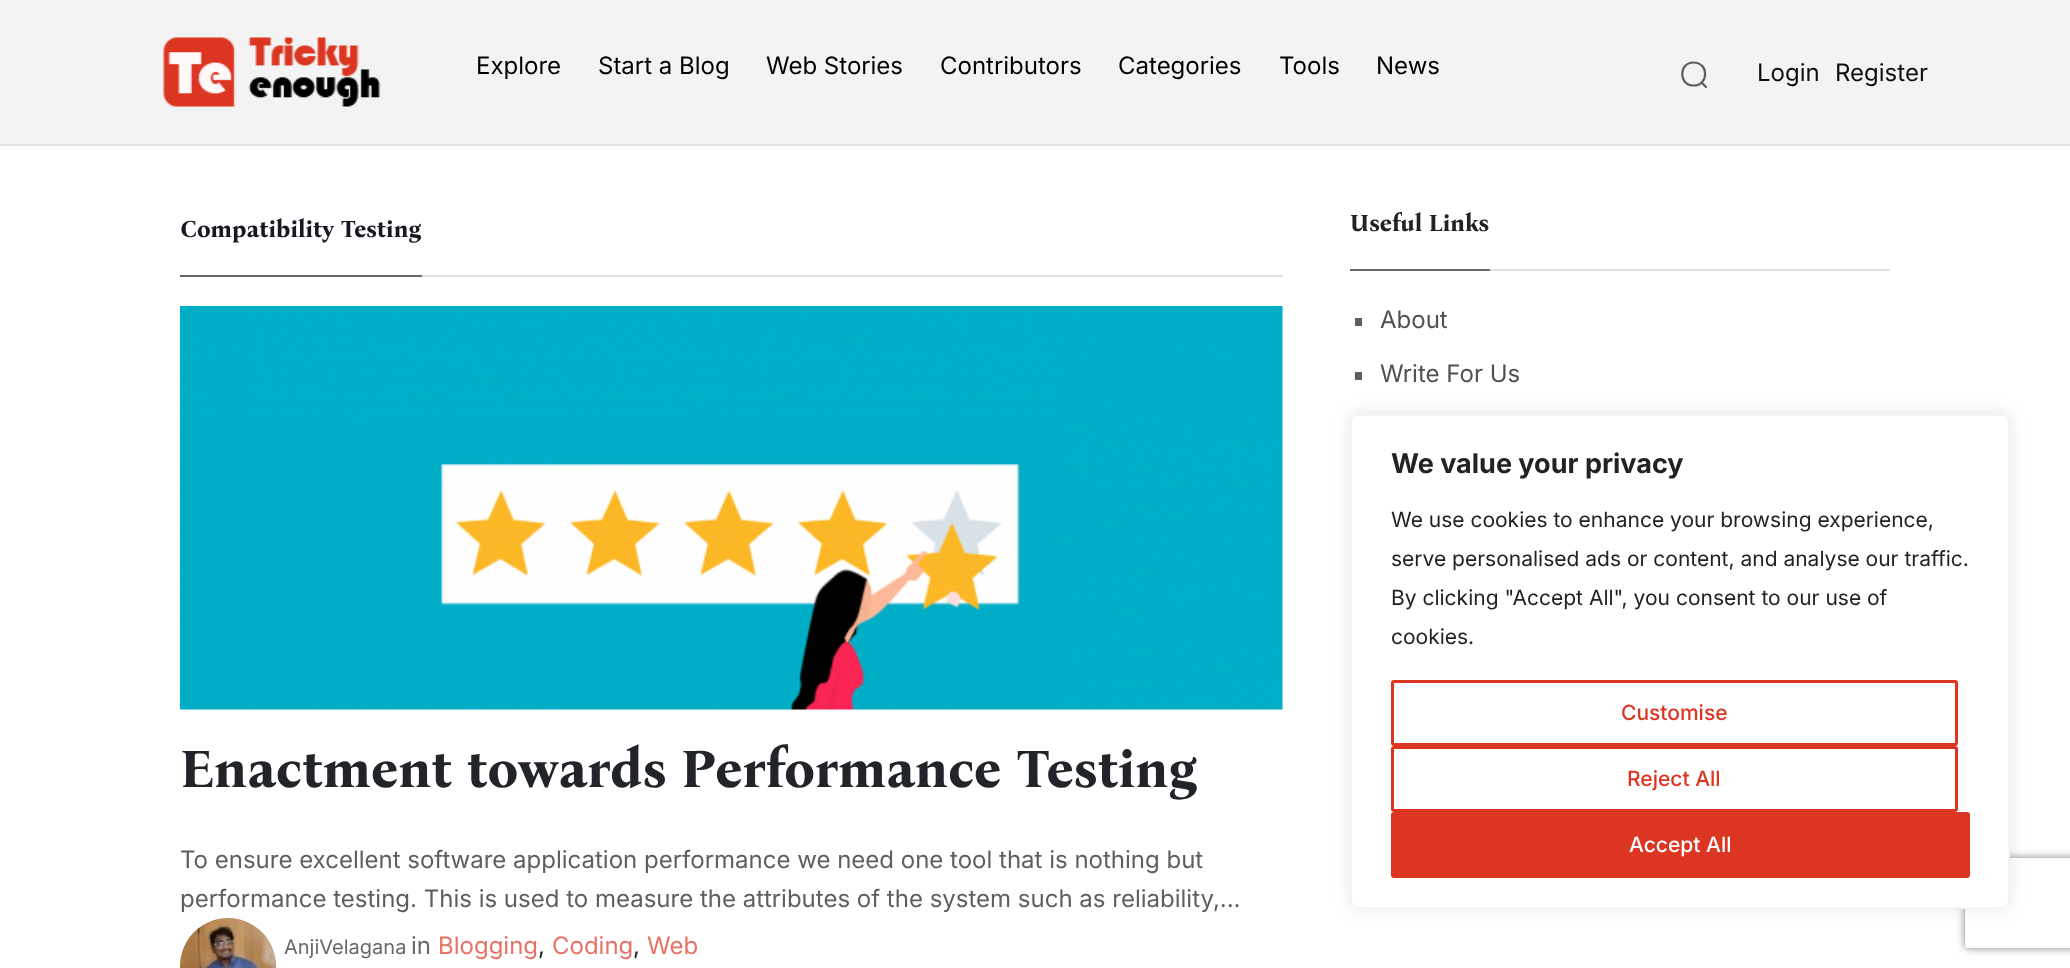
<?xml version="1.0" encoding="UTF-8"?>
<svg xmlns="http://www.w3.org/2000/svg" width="2070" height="968">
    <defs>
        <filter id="blur1" x="-50%" y="-200%" width="200%" height="500%"><feGaussianBlur stdDeviation="7.5"/></filter>
        <clipPath id="clip1"><path d="M 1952 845 H 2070 V 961 H 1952 Z M 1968 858 H 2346 C 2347.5 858 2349 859.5 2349 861 V 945 C 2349 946.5 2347.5 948 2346 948 H 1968 C 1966.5 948 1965 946.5 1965 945 V 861 C 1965 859.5 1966.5 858 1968 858 Z" clip-rule="evenodd"/></clipPath>
        <filter id="blur2" x="-50%" y="-200%" width="200%" height="500%"><feGaussianBlur stdDeviation="4"/></filter>
    </defs>
    <rect width="100%" height="100%" fill="#FFFFFF"/>
    <rect x="0" y="0" width="2070" height="144" fill="#F3F3F3"/>
    <rect x="0" y="144" width="2070" height="2" fill="#E4E2E2"/>
    <image x="163" y="37" width="218" height="70" href="img_01.png"/>
    <text x="476" y="74" font-family="Inter" font-size="24" fill="#000000">Explore</text>
    <text x="598" y="74" font-family="Inter" font-size="24" fill="#000000">Start a Blog</text>
    <text x="766" y="74" font-family="Inter" font-size="24" fill="#000000">Web Stories</text>
    <text x="940" y="74" font-family="Inter" font-size="24" fill="#000000">Contributors</text>
    <text x="1118" y="74" font-family="Inter" font-size="24" fill="#000000">Categories</text>
    <text x="1279" y="74" font-family="Inter" font-size="24" fill="#000000">Tools</text>
    <text x="1376" y="74" font-family="Inter" font-size="24" fill="#000000">News</text>
    <path d="M 1693.5 85.5 C 1709 85.5 1709 62.5 1693.5 62.5 C 1678.5 62.5 1678.5 85.5 1693.5 85.5 Z M 1701.5 82.5 L 1706 87" fill="none" stroke="#5E5E5E" stroke-width="2.2" stroke-linecap="round" stroke-linejoin="round"/>
    <text x="1757" y="81" font-family="Inter" font-size="24" fill="#0F0E0E">Login</text>
    <text x="1835" y="81" font-family="Inter" font-size="24" fill="#0F0E0E">Register</text>
    <rect x="422" y="275" width="861" height="2" fill="#DEDEDE"/>
    <rect x="180" y="275" width="242" height="2" fill="#686868"/>
    <text x="180" y="237" font-family="Bona Nova" font-size="24" font-weight="700" fill="#181823">Compatibility Testing</text>
    <image x="180" y="306" width="1103" height="404" href="img_02.png"/>
    <text x="180" y="787" font-family="Bona Nova" font-size="54" font-weight="700" fill="#212529">Enactment towards Performance Testing</text>
    <text font-family="Inter" font-size="24" fill="#5E5E5E">
        <tspan x="180" y="868">To ensure excellent software application performance we need one tool that is nothing but</tspan>
        <tspan x="180" y="907">performance testing. This is used to measure the attributes of the system such as reliability,...</tspan>
    </text>
    <image x="180" y="918" width="96" height="50" href="img_03.png"/>
    <text x="284" y="954" font-family="Inter" font-size="20" fill="#696969">AnjiVelagana</text>
    <text x="411" y="954" font-family="Inter" font-size="24" fill="#696969">in</text>
    <text x="438" y="954" font-family="Inter" font-size="24" fill="#E77264">Blogging</text>
    <text x="538" y="954" font-family="Inter" font-size="24" fill="#212529">,</text>
    <text x="552" y="954" font-family="Inter" font-size="24" fill="#E77264">Coding</text>
    <text x="633" y="954" font-family="Inter" font-size="24" fill="#212529">,</text>
    <text x="647" y="954" font-family="Inter" font-size="24" fill="#E77264">Web</text>
    <rect x="1490" y="269" width="400" height="2" fill="#DEDEDE"/>
    <rect x="1350" y="269" width="140" height="2" fill="#686868"/>
    <text x="1350" y="231" font-family="Bona Nova" font-size="24" font-weight="700" fill="#222222">Useful Links</text>
    <rect x="1355" y="318" width="7" height="8" fill="#5E5E5E"/>
    <text x="1380" y="328" font-family="Inter" font-size="24" fill="#4D5154">About</text>
    <rect x="1355" y="372" width="7" height="8" fill="#5E5E5E"/>
    <text x="1380" y="382" font-family="Inter" font-size="24" fill="#4D5154">Write For Us</text>
    <rect x="1350" y="413" width="660" height="495" rx="9" fill="#ACABAB" fill-opacity="0.3" filter="url(#blur1)"/>
    <g clip-path="url(#clip1)">
        <rect x="1965" y="858" width="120" height="90" rx="3" fill="#808080" filter="url(#blur2)"/>
    </g>
    <rect x="1351" y="415" width="658" height="493" rx="8" fill="#FFFFFF" stroke="#F4F4F4" stroke-width="2"/>
    <text x="1391" y="473" font-family="Inter" font-size="27" font-weight="700" fill="#222222">We value your privacy</text>
    <text font-family="Inter" font-size="21" fill="#222222">
        <tspan x="1391" y="527">We use cookies to enhance your browsing experience,</tspan>
        <tspan x="1391" y="566">serve personalised ads or content, and analyse our traffic.</tspan>
        <tspan x="1391" y="605">By clicking "Accept All", you consent to our use of</tspan>
        <tspan x="1391" y="644">cookies.</tspan>
    </text>
    <rect x="1392.5" y="681.5" width="564" height="63" rx="1.5" fill="none" stroke="#DC3522" stroke-width="3"/>
    <text x="1621" y="720" font-family="Inter" font-size="21" font-weight="500" fill="#DC3522">Customise</text>
    <rect x="1392.5" y="747.5" width="564" height="63" rx="1.5" fill="none" stroke="#DC3522" stroke-width="3"/>
    <text x="1627" y="786" font-family="Inter" font-size="21" font-weight="500" fill="#DC3522">Reject All</text>
    <rect x="1392.5" y="813.5" width="576" height="63" rx="1.5" fill="#DC3522" stroke="#DC3522" stroke-width="3"/>
    <text x="1629" y="852" font-family="Inter" font-size="21" font-weight="500" fill="#FFFFFF">Accept All</text>
</svg>
